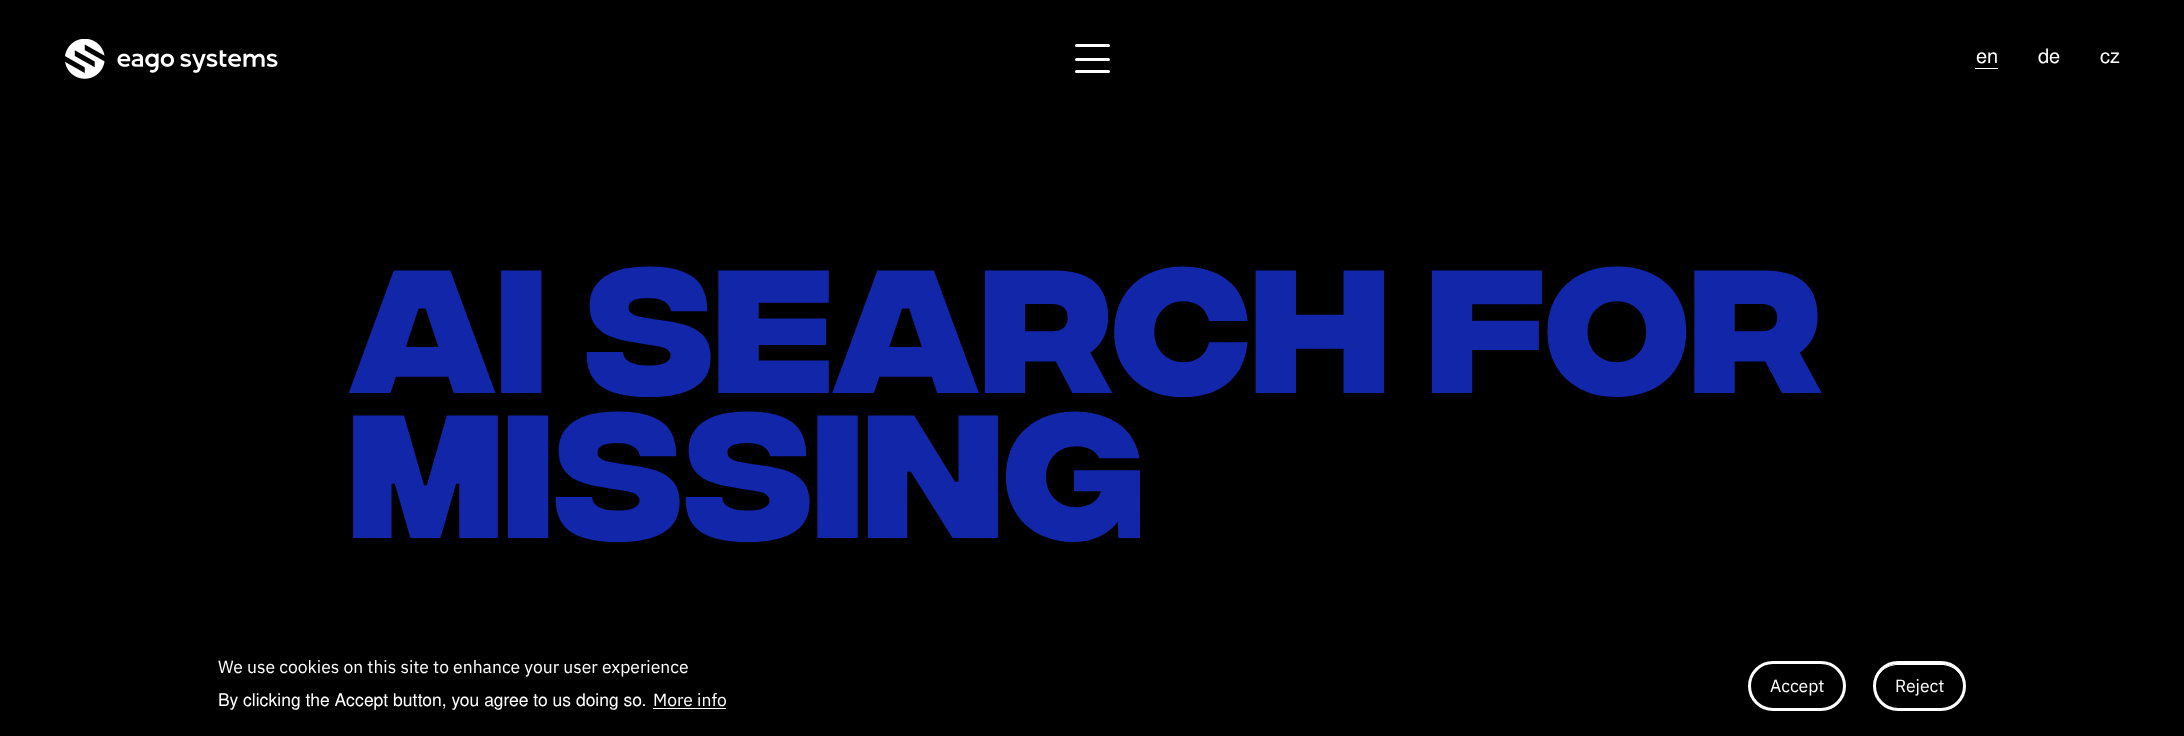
<?xml version="1.0" encoding="UTF-8"?>
<svg xmlns="http://www.w3.org/2000/svg" width="2184" height="736">
    <rect width="100%" height="100%" fill="#000000"/>
    <image x="65" y="39" width="213" height="40" href="img_01.png"/>
    <rect x="1075" y="58" width="35" height="3" rx="1.5" fill="#FFFFFF"/>
    <rect x="1075" y="44" width="35" height="3" rx="1.5" fill="#FFFFFF"/>
    <rect x="1075" y="70" width="35" height="3" rx="1.5" fill="#FFFFFF"/>
    <text x="1976" y="63" font-family="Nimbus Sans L" font-size="20" fill="#FFFFFF">en</text>
    <rect x="1975" y="68" width="23" height="1" fill="#FFFFFF"/>
    <text x="2038" y="63" font-family="Nimbus Sans L" font-size="20" fill="#FFFFFF">de</text>
    <text x="2100" y="63" font-family="Nimbus Sans L" font-size="20" fill="#FFFFFF">cz</text>
    <text font-family="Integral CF" font-size="175" font-weight="700" fill="#1226AA">
        <tspan x="348" y="393">AI Search For</tspan>
        <tspan x="348" y="538">Missing</tspan>
    </text>
    <text x="218" y="673" font-family="IBM Plex Sans" font-size="17.5" fill="#FFFFFF">We use cookies on this site to enhance your user experience</text>
    <text x="218" y="706" font-family="Nimbus Sans L" font-size="17.5" fill="#FFFFFF">By clicking the Accept button, you agree to us doing so.</text>
    <text x="653" y="706" font-family="IBM Plex Sans" font-size="17.5" fill="#FFFFFF">More info</text>
    <rect x="653" y="708" width="73" height="1" fill="#FFFFFF"/>
    <rect x="1749.5" y="662.5" width="95" height="47" rx="23.5" fill="none" stroke="#FFFFFF" stroke-width="3"/>
    <text x="1770" y="692" font-family="IBM Plex Sans" font-size="17.5" fill="#FFFFFF">Accept</text>
    <path d="M 1898 665 H 1941 C 1954 665 1964 675 1964 687 V 686 C 1964 674 1954 664 1942 664 H 1898 C 1885 664 1875 674 1875 686 V 687 C 1875 675 1885 665 1898 665 Z" fill="#FFFFFF"/>
    <rect x="1874.5" y="662.5" width="90" height="47" rx="23.5" fill="none" stroke="#FFFFFF" stroke-width="3"/>
    <text x="1895" y="692" font-family="IBM Plex Sans" font-size="17.5" fill="#FFFFFF">Reject</text>
</svg>
